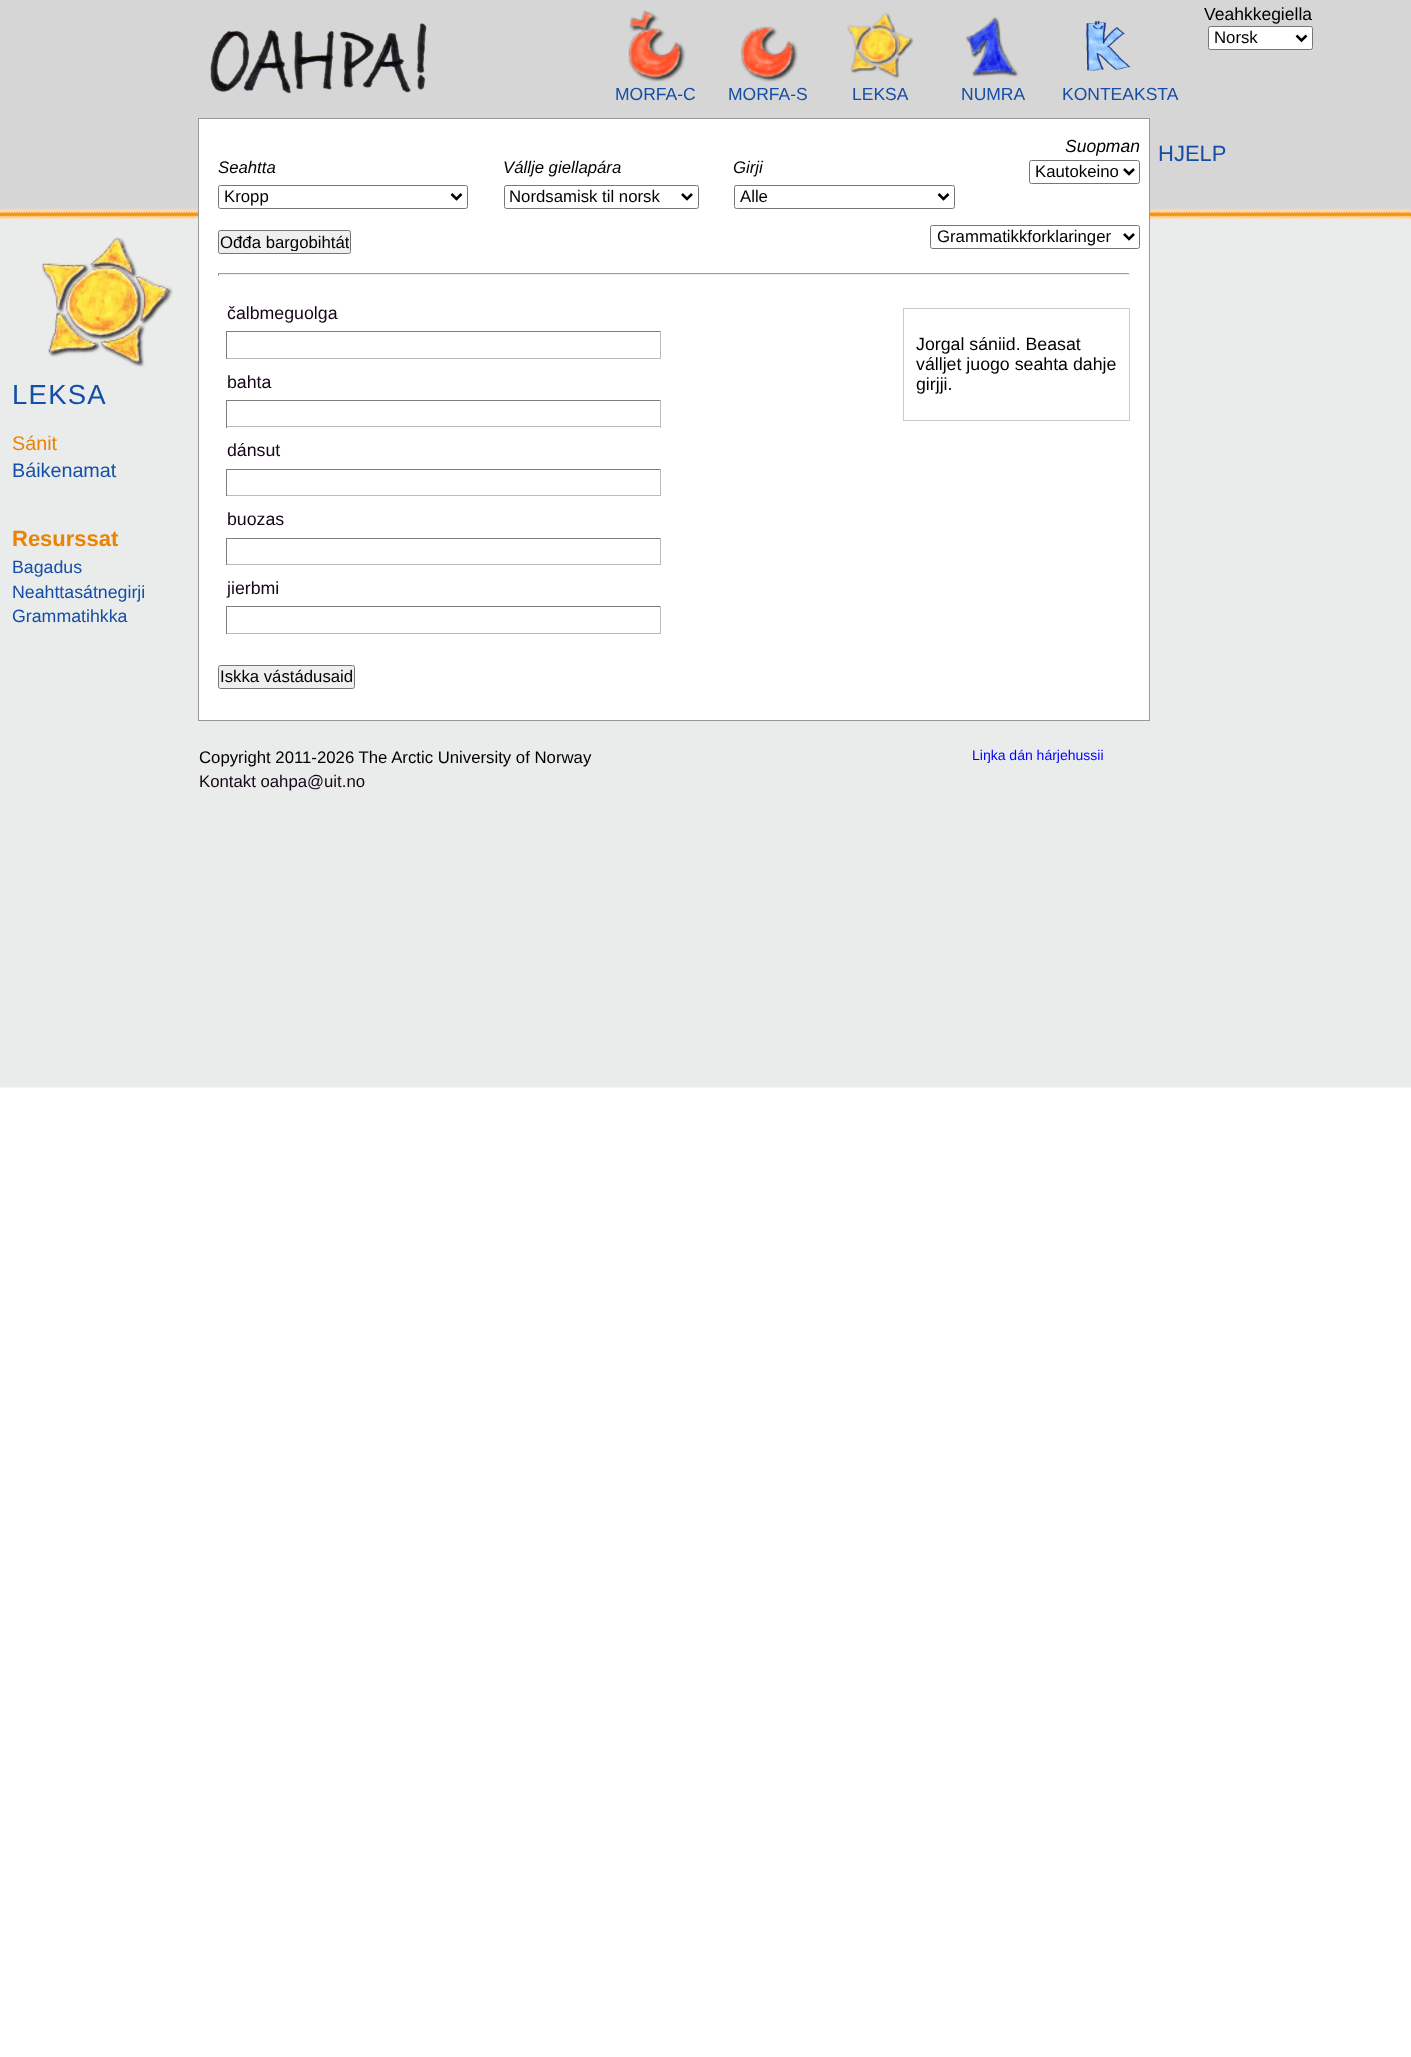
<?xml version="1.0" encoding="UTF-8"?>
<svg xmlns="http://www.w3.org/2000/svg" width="1411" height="2057">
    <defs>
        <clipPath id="clip1"><rect x="220" y="233" width="129" height="18"/></clipPath>
    </defs>
    <rect width="100%" height="100%" fill="#FFFFFF"/>
    <image x="0" y="0" width="1411" height="1088" href="img_01.png"/>
    <rect x="198.5" y="118.5" width="951" height="602" fill="#FFFFFF" stroke="#999999"/>
    <text x="1204" y="20" font-family="Liberation Sans" font-size="17.5" fill="#000000">Veahkkegiella</text>
    <rect x="1208.5" y="26.5" width="104" height="23" rx="2" fill="#FFFFFF" stroke="#767676"/>
    <path d="M 1296.5 35.5 L 1301.5 40.5 L 1306.5 35.5" fill="none" stroke="#000000" stroke-width="2.5"/>
    <text x="1214" y="43" font-family="Liberation Sans" font-size="16.75" fill="#000000">Norsk</text>
    <text x="1065" y="152" font-family="Liberation Sans" font-size="17.5" font-style="italic" fill="#000000">Suopman</text>
    <rect x="1029.5" y="160.5" width="110" height="23" rx="2" fill="none" stroke="#767676"/>
    <path d="M 1124 169 L 1129 174 L 1134 169" fill="none" stroke="#000000" stroke-width="2.5"/>
    <text x="1035" y="177" font-family="Liberation Sans" font-size="16.75" fill="#000000">Kautokeino</text>
    <text x="218" y="173" font-family="Liberation Sans" font-size="16.75" font-style="italic" fill="#000000">Seahtta</text>
    <rect x="218.5" y="185.5" width="249" height="23" rx="2" fill="none" stroke="#767676"/>
    <path d="M 451.5 194 L 456.5 199 L 461.5 194" fill="none" stroke="#000000" stroke-width="2.5"/>
    <text x="224" y="202" font-family="Liberation Sans" font-size="16.75" fill="#000000">Kropp</text>
    <text x="503" y="173" font-family="Liberation Sans" font-size="16.75" font-style="italic" fill="#000000">Vállje giellapára</text>
    <rect x="504.5" y="185.5" width="194" height="23" rx="2" fill="none" stroke="#767676"/>
    <path d="M 682 194 L 687 199 L 692 194" fill="none" stroke="#000000" stroke-width="2.5"/>
    <text x="509" y="202" font-family="Liberation Sans" font-size="16.75" fill="#000000">Nordsamisk til norsk</text>
    <text x="733" y="173" font-family="Liberation Sans" font-size="16.75" font-style="italic" fill="#000000">Girji</text>
    <rect x="734.5" y="185.5" width="220" height="23" rx="2" fill="none" stroke="#767676"/>
    <path d="M 938.5 194 L 943.5 199 L 948.5 194" fill="none" stroke="#000000" stroke-width="2.5"/>
    <text x="740" y="202" font-family="Liberation Sans" font-size="16.75" fill="#000000">Alle</text>
    <rect x="218.5" y="230.5" width="132" height="23" rx="2" fill="#EFEFEF" stroke="#767676"/>
    <g clip-path="url(#clip1)">
        <text x="220" y="248" font-family="Liberation Sans" font-size="16.75" fill="#000000">Ođđa bargobihtát</text>
    </g>
    <rect x="930.5" y="225.5" width="209" height="23" rx="2" fill="none" stroke="#767676"/>
    <path d="M 1124 234 L 1129 239 L 1134 234" fill="none" stroke="#000000" stroke-width="2.5"/>
    <text x="937" y="242" font-family="Liberation Sans" font-size="16.75" fill="#000000">Grammatikkforklaringer</text>
    <rect x="218" y="273" width="912" height="1" fill="#9F9F9F"/>
    <rect x="1129" y="273" width="1" height="3" fill="#EEEEEE"/>
    <rect x="218" y="274" width="912" height="1" fill="#EEEEEE"/>
    <rect x="218" y="273" width="1" height="3" fill="#9F9F9F"/>
    <text x="227" y="319" font-family="Liberation Sans" font-size="17.75" fill="#150517">čalbmeguolga</text>
    <rect x="226" y="331" width="435" height="1" fill="#7D7D7D"/>
    <rect x="660" y="331" width="1" height="28" fill="#BBBBBB"/>
    <rect x="226" y="358" width="435" height="1" fill="#BBBBBB"/>
    <rect x="226" y="331" width="1" height="28" fill="#7D7D7D"/>
    <text x="227" y="388" font-family="Liberation Sans" font-size="17.75" fill="#150517">bahta</text>
    <rect x="226" y="400" width="435" height="1" fill="#7D7D7D"/>
    <rect x="660" y="400" width="1" height="28" fill="#BBBBBB"/>
    <rect x="226" y="426" width="435" height="1" fill="#BBBBBB"/>
    <rect x="226" y="400" width="1" height="28" fill="#7D7D7D"/>
    <text x="227" y="456" font-family="Liberation Sans" font-size="17.75" fill="#150517">dánsut</text>
    <rect x="226" y="469" width="435" height="1" fill="#7D7D7D"/>
    <rect x="660" y="469" width="1" height="27" fill="#BBBBBB"/>
    <rect x="226" y="495" width="435" height="1" fill="#BBBBBB"/>
    <rect x="226" y="469" width="1" height="27" fill="#7D7D7D"/>
    <text x="227" y="525" font-family="Liberation Sans" font-size="17.75" fill="#150517">buozas</text>
    <rect x="226" y="538" width="435" height="1" fill="#7D7D7D"/>
    <rect x="660" y="538" width="1" height="27" fill="#BBBBBB"/>
    <rect x="226" y="564" width="435" height="1" fill="#BBBBBB"/>
    <rect x="226" y="538" width="1" height="27" fill="#7D7D7D"/>
    <text x="227" y="594" font-family="Liberation Sans" font-size="17.75" fill="#150517">jierbmi</text>
    <rect x="226" y="606" width="435" height="1" fill="#7D7D7D"/>
    <rect x="660" y="606" width="1" height="28" fill="#BBBBBB"/>
    <rect x="226" y="633" width="435" height="1" fill="#BBBBBB"/>
    <rect x="226" y="606" width="1" height="28" fill="#7D7D7D"/>
    <rect x="218.5" y="665.5" width="136" height="23" rx="2" fill="#EFEFEF" stroke="#767676"/>
    <text x="220" y="682" font-family="Liberation Sans" font-size="16.75" fill="#000000">Iskka vástádusaid</text>
    <rect x="903.5" y="308.5" width="226" height="112" fill="none" stroke="#CCCCCC"/>
    <text font-family="Liberation Sans" font-size="17.75" fill="#000000">
        <tspan x="916" y="350">Jorgal sániid. Beasat</tspan>
        <tspan x="916" y="370">válljet juogo seahta dahje</tspan>
        <tspan x="916" y="390">girjji.</tspan>
    </text>
    <image x="628" y="10" width="58" height="72" href="img_02.png"/>
    <text x="615" y="100" font-family="Liberation Sans" font-size="17.5" fill="#144EA6">MORFA-C</text>
    <image x="741" y="23" width="57" height="59" href="img_03.png"/>
    <text x="728" y="100" font-family="Liberation Sans" font-size="17.5" fill="#144EA6">MORFA-S</text>
    <image x="847" y="12" width="67" height="67" href="img_04.png"/>
    <text x="852" y="100" font-family="Liberation Sans" font-size="17.5" fill="#144EA6">LEKSA</text>
    <image x="965" y="17" width="54" height="60" href="img_05.png"/>
    <text x="961" y="100" font-family="Liberation Sans" font-size="17.5" fill="#144EA6">NUMRA</text>
    <image x="1086" y="20" width="45" height="51" href="img_06.png"/>
    <text x="1062" y="100" font-family="Liberation Sans" font-size="17.5" fill="#144EA6">KONTEAKSTA</text>
    <text x="1158" y="161" font-family="Liberation Sans" font-size="22" fill="#144EA6">HJELP</text>
    <image x="42" y="236" width="131" height="131" href="img_07.png"/>
    <text x="12" y="404" font-family="Liberation Sans" font-size="27.5" letter-spacing="1.25" fill="#144EA6">LEKSA</text>
    <text x="12" y="450" font-family="Liberation Sans" font-size="19.75" fill="#E98300">Sánit</text>
    <text x="12" y="477" font-family="Liberation Sans" font-size="19.75" fill="#144EA6">Báikenamat</text>
    <text x="12" y="546" font-family="Liberation Sans" font-size="22" font-weight="700" fill="#E98300">Resurssat</text>
    <text font-family="Liberation Sans" font-size="17.75" fill="#144EA6">
        <tspan x="12" y="573">Bagadus</tspan>
        <tspan x="12" y="598">Neahttasátnegirji</tspan>
        <tspan x="12" y="622">Grammatihkka</tspan>
    </text>
    <image x="210" y="23" width="217" height="71" href="img_08.png"/>
    <text x="199" y="763" font-family="Liberation Sans" font-size="16.75" fill="#000000">Copyright 2011-2026 The Arctic University of Norway</text>
    <text x="199" y="787" font-family="Liberation Sans" font-size="16.75" fill="#150517">Kontakt oahpa@uit.no</text>
    <text x="972" y="760" font-family="Liberation Sans" font-size="14" fill="#0000FF">Liŋka dán hárjehussii</text>
</svg>
